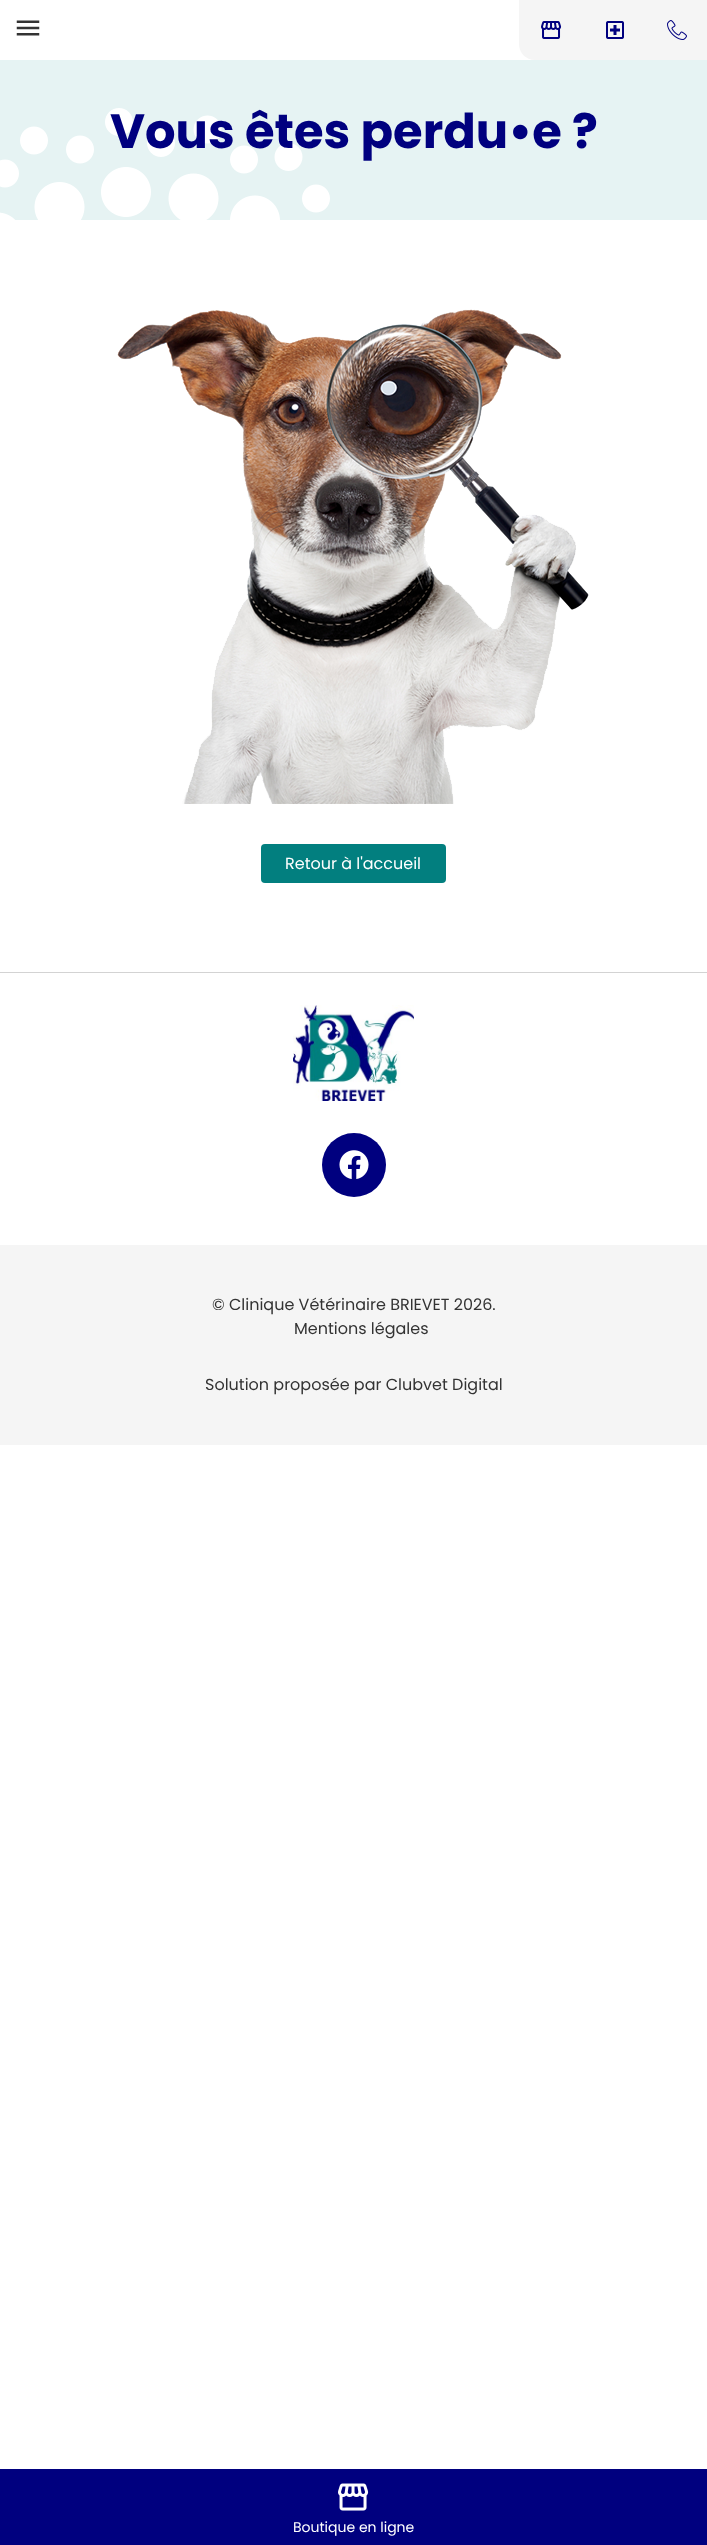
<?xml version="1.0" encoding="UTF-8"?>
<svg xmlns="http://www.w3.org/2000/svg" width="707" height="2545">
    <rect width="100%" height="100%" fill="#FFFFFF"/>
    <image x="16" y="20" width="24" height="16" href="img_01.png"/>
    <path d="M 519 0 H 583 V 60 H 535 C 526 60 519 53 519 44 Z" fill="#F5F5F5"/>
    <image x="541" y="21" width="21" height="18" href="img_02.png"/>
    <rect x="583" y="0" width="124" height="60" fill="#F5F5F5"/>
    <image x="606" y="21" width="18" height="18" href="img_03.png"/>
    <image x="667" y="20" width="20" height="20" href="img_04.png"/>
    <rect x="0" y="60" width="707" height="160" fill="#E6F3F3"/>
    <image x="0" y="108" width="330" height="112" href="img_05.png"/>
    <text x="110" y="148" font-family="Poppins" font-size="48" font-weight="700" fill="#00007F">Vous êtes perdu•e ?</text>
    <image x="117" y="309" width="472" height="495" href="img_06.png"/>
    <rect x="261" y="844" width="185" height="39" rx="4" fill="#027F7F"/>
    <text x="285" y="869" font-family="Poppins" font-size="16" fill="#FFFFFF">Retour à l'accueil</text>
    <rect x="0" y="972" width="707" height="1" fill="#D3D3D3"/>
    <image x="293" y="1005" width="121" height="96" href="img_07.png"/>
    <circle cx="354" cy="1165" r="32" fill="#00007F"/>
    <image x="339" y="1150" width="30" height="29" href="img_08.png"/>
    <rect x="0" y="1245" width="707" height="200" fill="#F5F5F5"/>
    <text x="212" y="1310" font-family="Poppins" font-size="16" fill="#333333">© Clinique Vétérinaire BRIEVET 2026.</text>
    <text x="294" y="1334" font-family="Poppins" font-size="16" fill="#333333">Mentions légales</text>
    <text x="205" y="1390" font-family="Poppins" font-size="16" fill="#333333">Solution proposée par Clubvet Digital</text>
    <rect x="0" y="2469" width="707" height="76" fill="#00007F"/>
    <image x="338" y="2483" width="31" height="28" href="img_09.png"/>
    <text x="293" y="2532" font-family="Poppins" font-size="14" fill="#FFFFFF">Boutique en ligne</text>
</svg>
